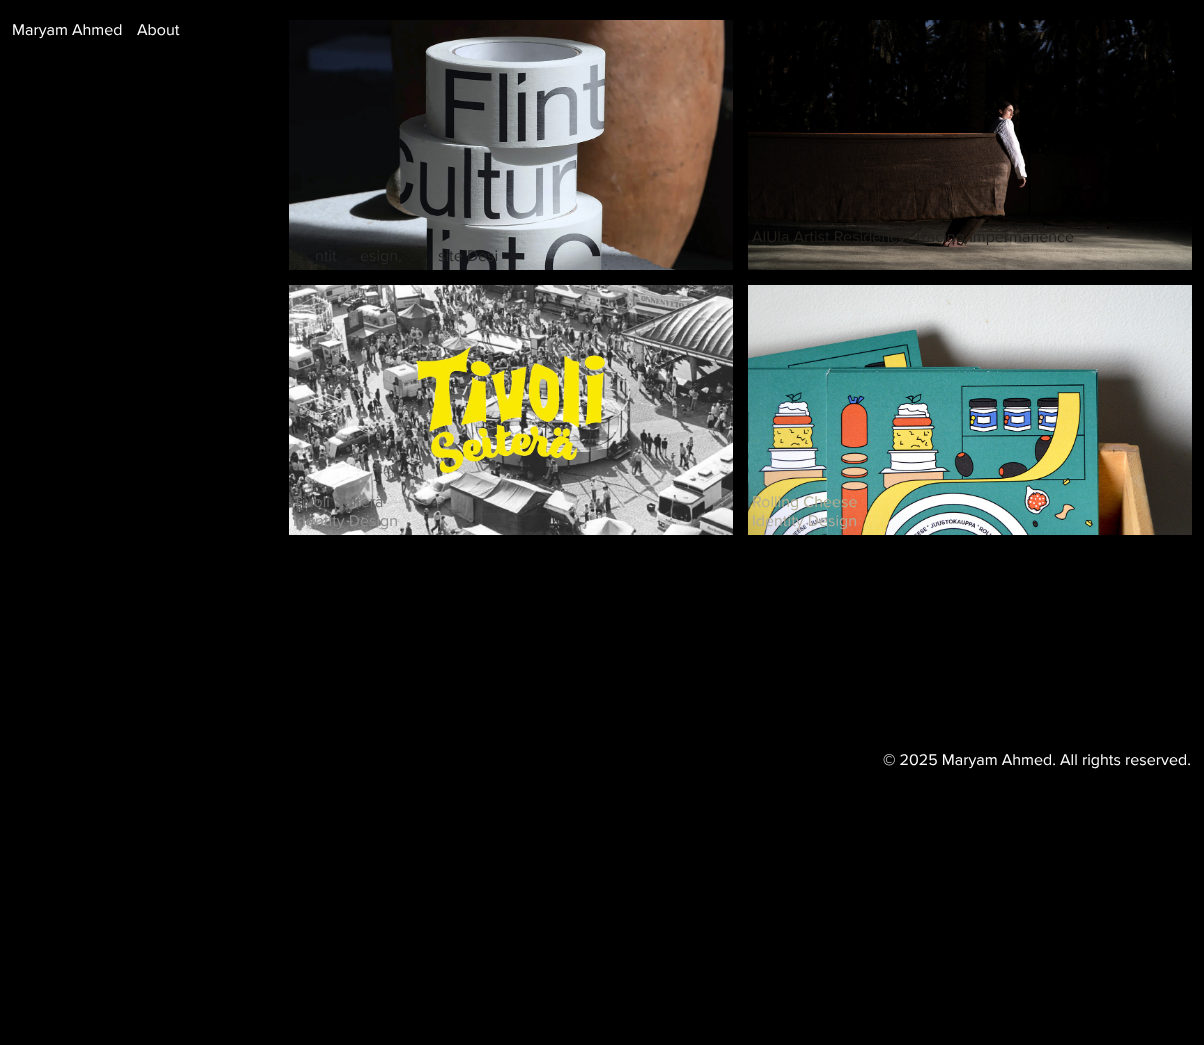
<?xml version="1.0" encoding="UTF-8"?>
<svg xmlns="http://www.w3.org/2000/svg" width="1204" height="1045">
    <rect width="100%" height="100%" fill="#000000"/>
    <text x="12" y="35" font-family="Proxima Nova" font-size="16" fill="#FFFFFF">Maryam Ahmed</text>
    <text x="137" y="35" font-family="Proxima Nova" font-size="16" fill="#FFFFFF">About</text>
    <image x="748" y="20" width="444" height="250" href="img_01.png"/>
    <text x="752" y="242" font-family="Proxima Nova" font-size="16" fill="#211E1B">AlUla Artist Residency: Tracing Impermanence</text>
    <image x="289" y="20" width="444" height="250" href="img_02.png"/>
    <text x="315" y="261" font-family="Proxima Nova" font-size="16" fill="#252625">ntit</text>
    <text x="360" y="261" font-family="Proxima Nova" font-size="16" fill="#252625">esign,</text>
    <text x="438" y="261" font-family="Proxima Nova" font-size="16" fill="#252625">site Desi</text>
    <image x="289" y="285" width="444" height="250" href="img_03.png"/>
    <text x="293" y="507" font-family="Proxima Nova" font-size="16" fill="#717171">Tivoli Seiterä</text>
    <text x="293" y="526" font-family="Proxima Nova" font-size="16" fill="#8F8F8F">Identity Design</text>
    <image x="748" y="285" width="444" height="250" href="img_04.png"/>
    <text x="752" y="507" font-family="Proxima Nova" font-size="16" fill="#B3AF90">Rolling Cheese</text>
    <text x="752" y="526" font-family="Proxima Nova" font-size="16" fill="#B2AD9D">Identity Design</text>
    <text x="883" y="765" font-family="Proxima Nova" font-size="16" fill="#FFFFFF">© 2025 Maryam Ahmed. All rights reserved.</text>
</svg>
